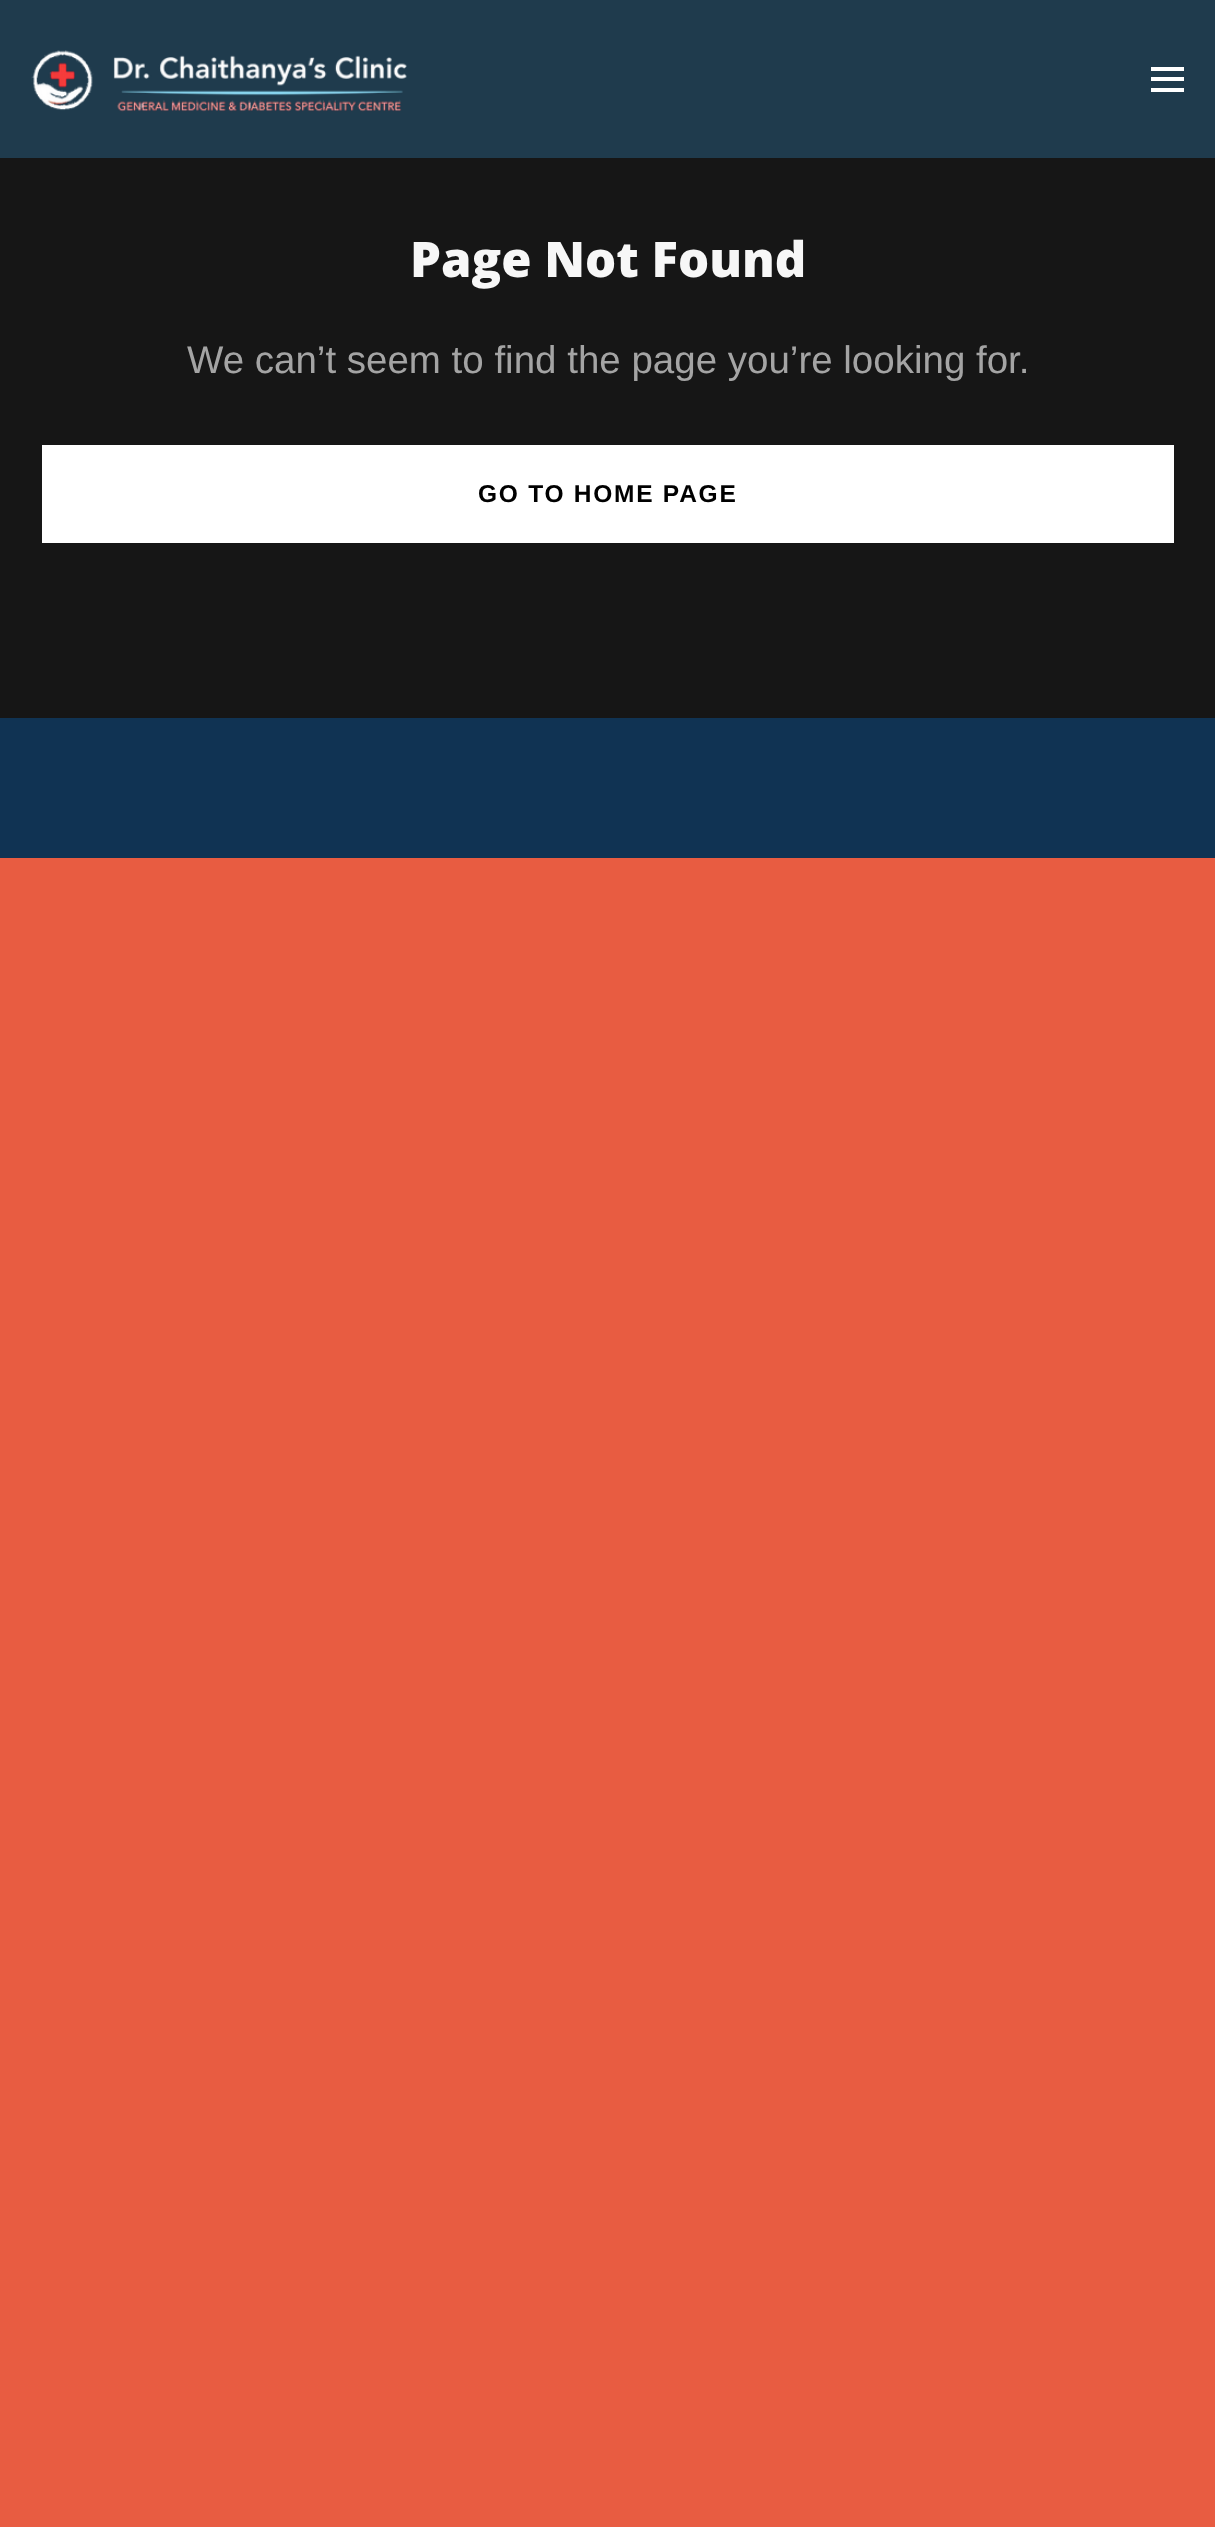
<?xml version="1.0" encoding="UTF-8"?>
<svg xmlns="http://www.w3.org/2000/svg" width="1215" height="2527">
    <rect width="100%" height="100%" fill="#E85C41"/>
    <rect x="0" y="0" width="1215" height="158" fill="#1F3B4D"/>
    <image x="31" y="50" width="376" height="62" href="img_01.png"/>
    <rect x="1151" y="67" width="33" height="4" fill="#FFFFFF"/>
    <rect x="1151" y="77" width="33" height="4" fill="#FFFFFF"/>
    <rect x="1151" y="88" width="33" height="4" fill="#FFFFFF"/>
    <rect x="0" y="158" width="1215" height="560" fill="#161616"/>
    <text x="410" y="277" font-family="Open Sans" font-size="49" font-weight="800" fill="#F7F7F7">Page Not Found</text>
    <text x="187" y="373" font-family="Liberation Sans" font-size="38.5" fill="#A4A4A4">We can’t seem to find the page you’re looking for.</text>
    <rect x="42" y="445" width="1132" height="98" fill="#FFFFFF"/>
    <text x="478" y="502" font-family="Liberation Sans" font-size="24.5" font-weight="700" letter-spacing="1.75" fill="#000000">GO TO HOME PAGE</text>
    <rect x="0" y="718" width="1215" height="140" fill="#103353"/>
</svg>
